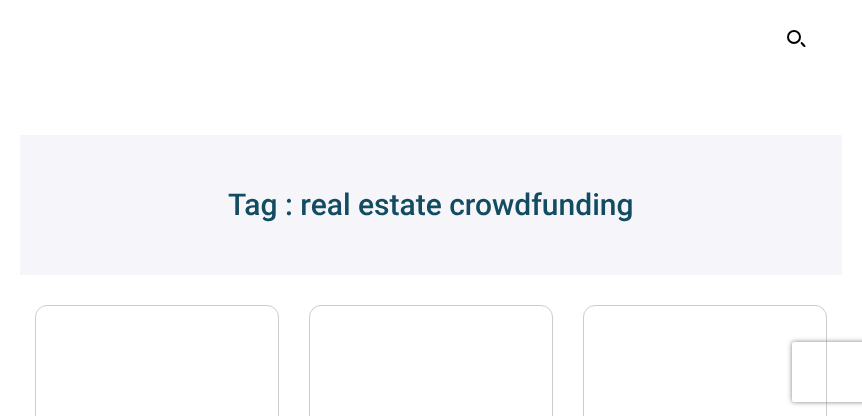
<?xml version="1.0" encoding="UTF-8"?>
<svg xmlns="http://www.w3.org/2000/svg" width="862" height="416">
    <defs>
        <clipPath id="clip1"><path d="M 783 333 H 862 V 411 H 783 Z M 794 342 H 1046 C 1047 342 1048 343 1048 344 V 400 C 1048 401 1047 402 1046 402 H 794 C 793 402 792 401 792 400 V 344 C 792 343 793 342 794 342 Z" clip-rule="evenodd"/></clipPath>
        <filter id="blur1" x="-50%" y="-200%" width="200%" height="500%"><feGaussianBlur stdDeviation="2.5"/></filter>
    </defs>
    <rect width="100%" height="100%" fill="#FFFFFF"/>
    <circle cx="794" cy="37" r="6" fill="none" stroke="#000000" stroke-width="2"/>
    <path d="M 802.5 42.5 L 804 44 C 804.5 44.5 805.5 45.5 805.5 46.5 C 804.5 48.5 802 45 801.5 44.5 C 799.5 42.5 801.5 41.5 802.5 42.5 Z" fill="#000000"/>
    <rect x="20" y="135" width="822" height="140" fill="#F5F5FA"/>
    <text x="228" y="215" font-family="Roboto" font-size="30" font-weight="500" fill="#124C60">Tag : real estate crowdfunding</text>
    <rect x="35.5" y="305.5" width="243" height="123" rx="11.5" fill="none" stroke="#CCCCCC"/>
    <rect x="309.5" y="305.5" width="243" height="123" rx="11.5" fill="none" stroke="#CCCCCC"/>
    <rect x="583.5" y="305.5" width="243" height="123" rx="11.5" fill="none" stroke="#CCCCCC"/>
    <g clip-path="url(#clip1)">
        <rect x="792" y="342" width="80" height="60" rx="2" fill="#808080" filter="url(#blur1)"/>
    </g>
</svg>
